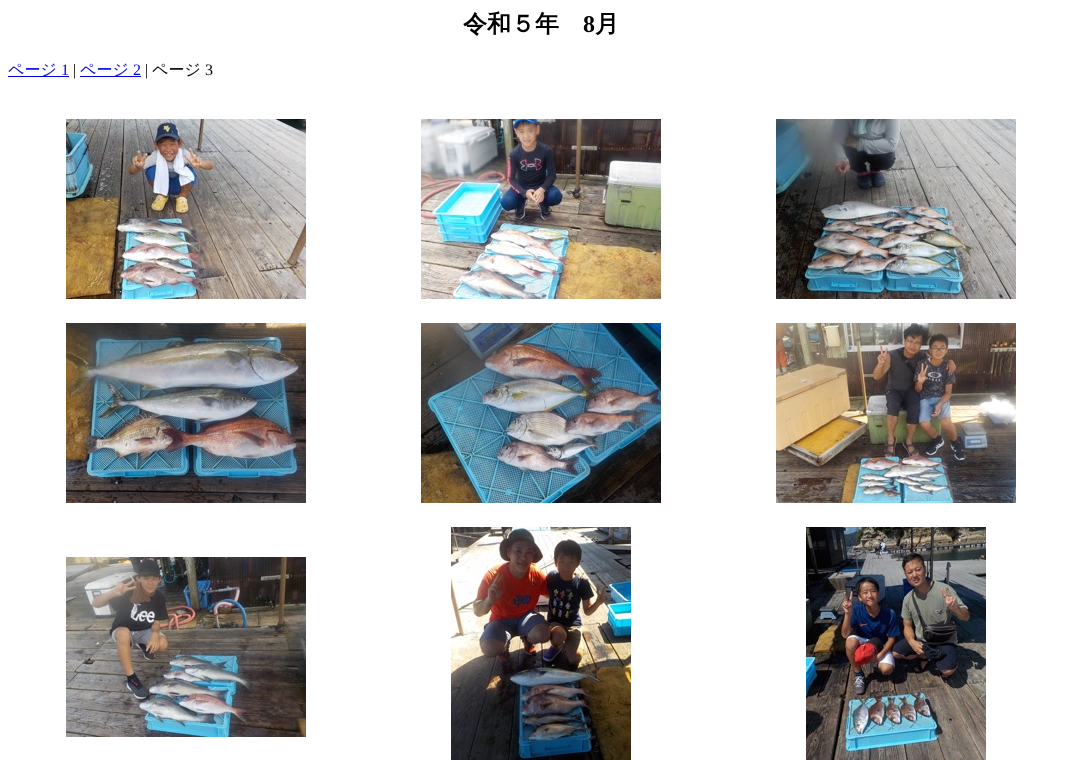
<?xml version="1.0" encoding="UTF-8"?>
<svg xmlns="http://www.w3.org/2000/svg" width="1082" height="760">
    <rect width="100%" height="100%" fill="#FFFFFF"/>
    <text x="463" y="32" font-family="WenQuanYi Zen Hei" font-size="24" font-weight="700" fill="#000000">令和５年</text>
    <text x="583" y="32" font-family="Liberation Serif" font-size="24" font-weight="700" fill="#000000">8</text>
    <text x="595" y="32" font-family="WenQuanYi Zen Hei" font-size="24" font-weight="700" fill="#000000">月</text>
    <rect x="8" y="76" width="61" height="1" fill="#0000EE"/>
    <text x="8" y="75" font-family="WenQuanYi Zen Hei" font-size="16" font-weight="500" fill="#0000EE">ページ</text>
    <text x="61" y="75" font-family="Liberation Serif" font-size="16" fill="#0000EE">1</text>
    <text x="73" y="75" font-family="Liberation Serif" font-size="16" fill="#000000">|</text>
    <rect x="80" y="76" width="61" height="1" fill="#0000EE"/>
    <text x="80" y="75" font-family="WenQuanYi Zen Hei" font-size="16" font-weight="500" fill="#0000EE">ページ</text>
    <text x="133" y="75" font-family="Liberation Serif" font-size="16" fill="#0000EE">2</text>
    <text x="145" y="75" font-family="Liberation Serif" font-size="16" fill="#000000">|</text>
    <text x="152" y="75" font-family="WenQuanYi Zen Hei" font-size="16" font-weight="500" fill="#000000">ページ</text>
    <text x="205" y="75" font-family="Liberation Serif" font-size="16" fill="#000000">3</text>
    <image x="66" y="119" width="240" height="180" href="img_01.png"/>
    <image x="421" y="119" width="240" height="180" href="img_02.png"/>
    <image x="776" y="119" width="240" height="180" href="img_03.png"/>
    <image x="66" y="323" width="240" height="180" href="img_04.png"/>
    <image x="421" y="323" width="240" height="180" href="img_05.png"/>
    <image x="776" y="323" width="240" height="180" href="img_06.png"/>
    <image x="66" y="557" width="240" height="180" href="img_07.png"/>
    <image x="451" y="527" width="180" height="233" href="img_08.png"/>
    <image x="806" y="527" width="180" height="233" href="img_09.png"/>
</svg>
